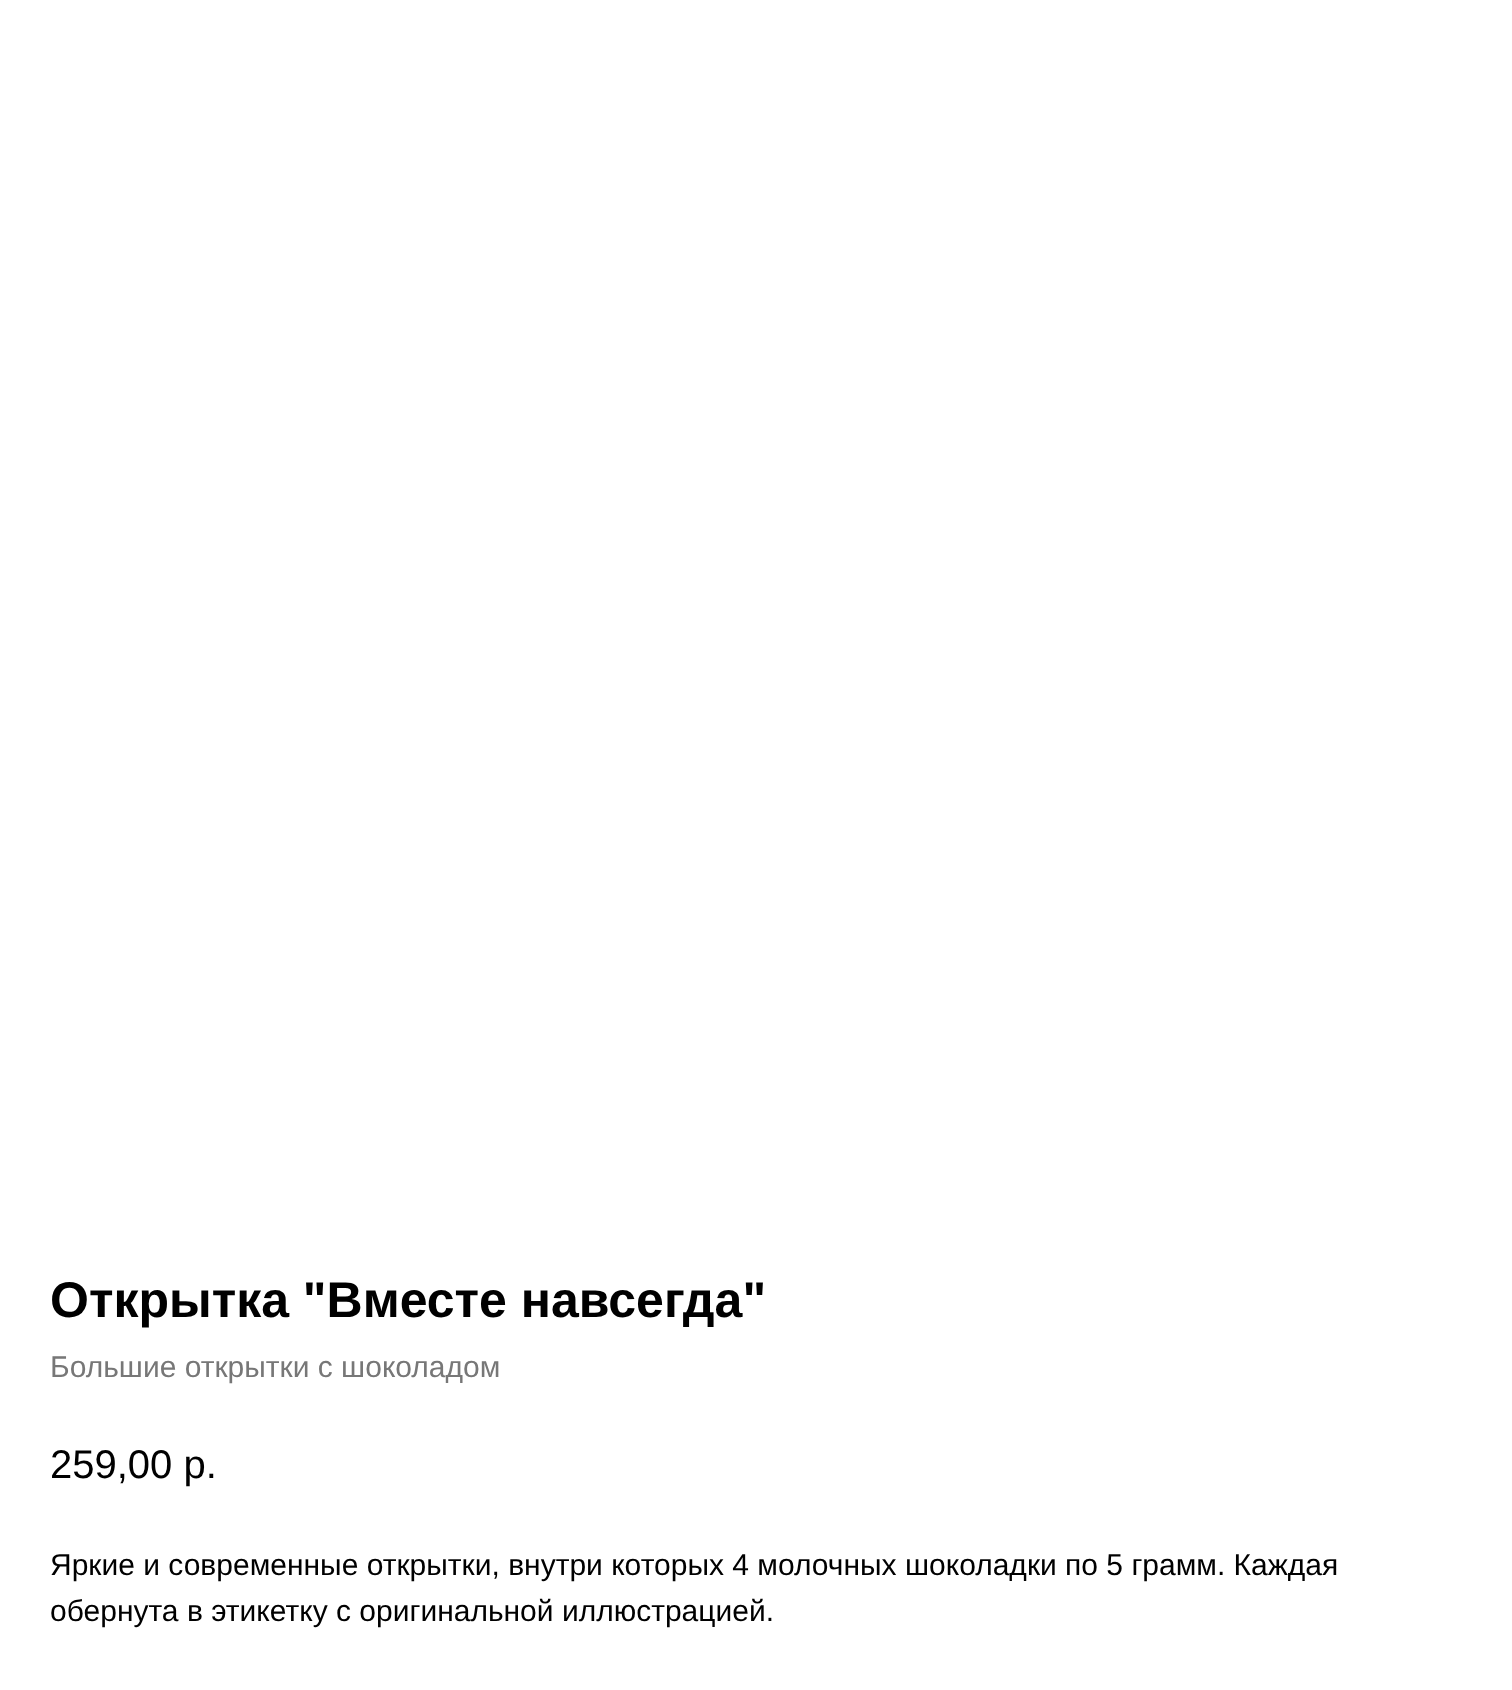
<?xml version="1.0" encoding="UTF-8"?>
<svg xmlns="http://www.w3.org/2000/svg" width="1512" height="1690">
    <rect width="100%" height="100%" fill="#FFFFFF"/>
    <text x="50" y="1317" font-family="Liberation Sans" font-size="50" font-weight="700" fill="#000000">Открытка "Вместе навсегда"</text>
    <text x="50" y="1377" font-family="Liberation Sans" font-size="30" fill="#777777">Большие открытки с шоколадом</text>
    <text x="50" y="1478" font-family="Liberation Sans" font-size="40" fill="#000000">259,00 р.</text>
    <text font-family="Liberation Sans" font-size="30" fill="#000000">
        <tspan x="50" y="1575">Яркие и современные открытки, внутри которых 4 молочных шоколадки по 5 грамм. Каждая</tspan>
        <tspan x="50" y="1621">обернута в этикетку с оригинальной иллюстрацией.</tspan>
    </text>
</svg>
